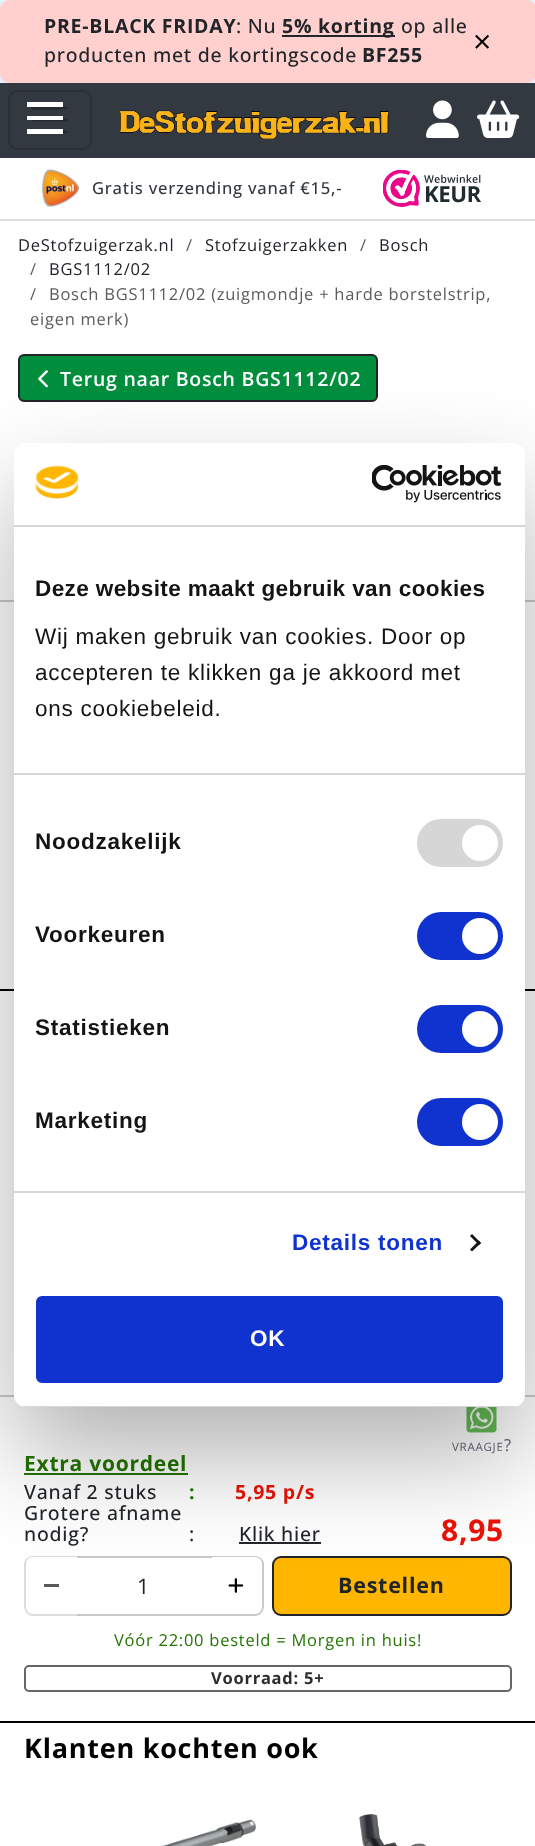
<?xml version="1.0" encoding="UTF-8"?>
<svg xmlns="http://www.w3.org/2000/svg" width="535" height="1846">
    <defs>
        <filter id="blur1" x="-50%" y="-200%" width="200%" height="500%"><feGaussianBlur stdDeviation="51"/></filter>
        <clipPath id="clip1"><rect x="14" y="443" width="511" height="964" rx="12"/></clipPath>
    </defs>
    <rect width="100%" height="100%" fill="#E4F1FE"/>
    <rect x="0" y="0" width="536" height="83" rx="9" fill="#FFD0CE"/>
    <text x="44" y="33" font-family="Open Sans" font-size="19.5" font-weight="700" letter-spacing="0.75" fill="#212529">PRE-BLACK FRIDAY</text>
    <text x="236" y="33" font-family="Open Sans" font-size="19.5" font-weight="500" letter-spacing="0.75" fill="#212529">: Nu</text>
    <rect x="282" y="35" width="113" height="2" fill="#212529"/>
    <text x="282" y="33" font-family="Open Sans" font-size="19.5" font-weight="700" letter-spacing="0.75" fill="#212529">5% korting</text>
    <text x="401" y="33" font-family="Open Sans" font-size="19.5" font-weight="500" letter-spacing="0.75" fill="#212529">op alle</text>
    <text x="44" y="62" font-family="Open Sans" font-size="19.5" font-weight="500" letter-spacing="0.75" fill="#212529">producten met de kortingscode</text>
    <text x="362" y="62" font-family="Open Sans" font-size="19.5" font-weight="700" letter-spacing="0.75" fill="#212529">BF255</text>
    <text x="473" y="53" font-family="Open Sans" font-size="32" letter-spacing="0.75" fill="#000000">×</text>
    <rect x="0" y="83" width="535" height="75" fill="#333940"/>
    <rect x="9" y="91" width="82" height="58" rx="8" fill="none" stroke="#2B3036" stroke-width="2"/>
    <path d="M 33 108 H 66 M 33 120 H 66 M 33 132 H 66" fill="none" stroke="#262A2F" stroke-width="3" stroke-linecap="round"/>
    <rect x="27" y="102" width="36" height="5" fill="#FFFFFF"/>
    <rect x="27" y="116" width="36" height="4" fill="#FFFFFF"/>
    <rect x="27" y="129" width="36" height="5" fill="#FFFFFF"/>
    <image x="120" y="110" width="269" height="29" href="img_01.png"/>
    <image x="426" y="100" width="33" height="38" href="img_02.png"/>
    <image x="477" y="100" width="43" height="38" href="img_03.png"/>
    <rect x="0" y="158" width="535" height="61" fill="#FFFFFF"/>
    <rect x="0" y="219" width="535" height="2" fill="#DEDEDE"/>
    <image x="42" y="169" width="38" height="38" href="img_04.png"/>
    <text x="92" y="194" font-family="Open Sans" font-size="16.6" font-weight="500" letter-spacing="0.75" fill="#333840">Gratis verzending vanaf €15,-</text>
    <image x="383" y="170" width="98" height="37" href="img_05.png"/>
    <rect x="0" y="221" width="535" height="1625" fill="#FFFFFF"/>
    <text x="18" y="251" font-family="Open Sans" font-size="16.5" letter-spacing="0.75" fill="#212529">DeStofzuigerzak.nl</text>
    <text x="186" y="251" font-family="Open Sans" font-size="16.5" letter-spacing="0.75" fill="#595C5F">/</text>
    <text x="205" y="251" font-family="Open Sans" font-size="16.5" letter-spacing="0.75" fill="#212529">Stofzuigerzakken</text>
    <text x="360" y="251" font-family="Open Sans" font-size="16.5" letter-spacing="0.75" fill="#595C5F">/</text>
    <text x="379" y="251" font-family="Open Sans" font-size="16.5" letter-spacing="0.75" fill="#212529">Bosch</text>
    <text x="30" y="275" font-family="Open Sans" font-size="16.5" letter-spacing="0.75" fill="#595C5F">/</text>
    <text x="49" y="275" font-family="Open Sans" font-size="16.5" letter-spacing="0.75" fill="#212529">BGS1112/02</text>
    <text x="30" y="300" font-family="Open Sans" font-size="16.5" letter-spacing="0.75" fill="#595C5F">/</text>
    <text x="49" y="300" font-family="Open Sans" font-size="16.5" letter-spacing="0.75" fill="#595C5F">Bosch BGS1112/02 (zuigmondje + harde borstelstrip,</text>
    <text x="30" y="325" font-family="Open Sans" font-size="16.5" letter-spacing="0.75" fill="#595C5F">eigen merk)</text>
    <rect x="19" y="355" width="358" height="46" rx="5" fill="#008E3D" stroke="#212529" stroke-width="2"/>
    <image x="38" y="370" width="10" height="18" href="img_06.png"/>
    <text x="60" y="386" font-family="Open Sans" font-size="19.5" font-weight="600" letter-spacing="0.75" fill="#FFFFFF">Terug naar Bosch BGS1112/02</text>
    <rect x="0" y="600" width="535" height="2" fill="#C8C9CA"/>
    <rect x="0" y="989" width="535" height="2" fill="#000000"/>
    <rect x="0" y="1395" width="535" height="2" fill="#CBCBCB"/>
    <image x="466" y="1407" width="31" height="26" href="img_07.png"/>
    <text x="452" y="1451" font-family="Open Sans" font-size="11.5" letter-spacing="0.75" fill="#686876">VRAAGJE</text>
    <text x="504" y="1451" font-family="Open Sans" font-size="16.5" letter-spacing="0.75" fill="#686876">?</text>
    <text x="24" y="1471" font-family="Open Sans" font-size="21" font-weight="700" letter-spacing="0.75" fill="#237500">Extra voordeel</text>
    <rect x="24" y="1473" width="164" height="2" fill="#237500"/>
    <text x="24" y="1499" font-family="Open Sans" font-size="19.5" font-weight="500" letter-spacing="0.75" fill="#212529">Vanaf 2 stuks</text>
    <text x="189" y="1499" font-family="Open Sans" font-size="19.5" font-weight="700" letter-spacing="0.75" fill="#237500">:</text>
    <text x="235" y="1499" font-family="Open Sans" font-size="19.5" font-weight="700" letter-spacing="0.75" fill="#EA1306">5,95 p/s</text>
    <text font-family="Open Sans" font-size="19.5" font-weight="500" letter-spacing="0.75" fill="#212529">
        <tspan x="24" y="1520">Grotere afname</tspan>
        <tspan x="24" y="1541">nodig?</tspan>
    </text>
    <text x="189" y="1541" font-family="Open Sans" font-size="19.5" font-weight="500" letter-spacing="0.75" fill="#212529">:</text>
    <text x="239" y="1541" font-family="Open Sans" font-size="19.5" font-weight="500" letter-spacing="0.75" fill="#212529">Klik hier</text>
    <rect x="239" y="1542" width="82" height="2" fill="#212529"/>
    <text x="441" y="1541" font-family="Open Sans" font-size="30" font-weight="700" letter-spacing="0.75" fill="#EA1306">8,95</text>
    <rect x="77" y="1556" width="135" height="2" fill="#C9C9C9"/>
    <rect x="77" y="1614" width="135" height="2" fill="#C9C9C9"/>
    <path d="M 33 1556 H 78 V 1616 H 33 C 28 1616 24 1611 24 1606 V 1564 C 24 1560 28 1556 33 1556 Z M 33 1557 H 78 V 1614 H 33 C 29 1614 26 1611 26 1606 V 1564 C 26 1560 29 1557 33 1557 Z" fill="#C9C9C9" fill-opacity="0.65" fill-rule="evenodd"/>
    <rect x="44" y="1584" width="15" height="3" fill="#595959"/>
    <text x="137" y="1594" font-family="Open Sans" font-size="21.5" letter-spacing="0.75" fill="#212529">1</text>
    <path d="M 210 1556 H 255 C 260 1556 264 1560 264 1564 V 1606 C 264 1611 260 1616 255 1616 H 210 Z M 210 1557 H 255 C 259 1557 262 1560 262 1564 V 1606 C 262 1611 259 1614 255 1614 H 210 Z" fill="#C9C9C9" fill-rule="evenodd"/>
    <image x="228" y="1578" width="16" height="15" href="img_08.png"/>
    <rect x="273" y="1557" width="238" height="58" rx="8" fill="#FFB600" stroke="#212529" stroke-width="2"/>
    <text x="338" y="1593" font-family="Open Sans" font-size="21.5" font-weight="700" letter-spacing="0.75" fill="#212529">Bestellen</text>
    <text x="114" y="1646" font-family="Open Sans" font-size="16.5" letter-spacing="0.75" fill="#237500">Vóór 22:00 besteld = Morgen in huis!</text>
    <rect x="25" y="1666" width="486" height="25" rx="4" fill="none" stroke="#666666" stroke-width="2"/>
    <text x="211" y="1684" font-family="Open Sans" font-size="16.5" font-weight="700" letter-spacing="0.75" fill="#2C2C2C">Voorraad: 5+</text>
    <rect x="0" y="1721" width="535" height="2" fill="#000000"/>
    <text x="24" y="1758" font-family="Open Sans" font-size="27" font-weight="700" letter-spacing="0.75" fill="#000000">Klanten kochten ook</text>
    <image x="161" y="1819" width="95" height="27" href="img_09.png"/>
    <image x="359" y="1814" width="68" height="32" href="img_10.png"/>
    <rect x="14" y="491" width="511" height="964" rx="12" fill="#000000" fill-opacity="0.3" filter="url(#blur1)"/>
    <rect x="14" y="443" width="511" height="964" rx="12" fill="#FFFFFF"/>
    <rect x="14" y="525" width="511" height="2" fill="#D6D6D6"/>
    <image x="34" y="465" width="45" height="34" href="img_11.png"/>
    <image x="372" y="465" width="130" height="38" href="img_12.png"/>
    <rect x="14" y="773" width="511" height="2" fill="#D6D6D6"/>
    <text x="35" y="596" font-family="Liberation Sans" font-size="22.5" font-weight="700" letter-spacing="0.4" fill="#141414">Deze website maakt gebruik van cookies</text>
    <text font-family="Liberation Sans" font-size="22.5" letter-spacing="0.75" fill="#141414">
        <tspan x="35" y="644">Wij maken gebruik van cookies. Door op</tspan>
        <tspan x="35" y="680">accepteren te klikken ga je akkoord met</tspan>
        <tspan x="35" y="716">ons cookiebeleid.</tspan>
    </text>
    <rect x="14" y="1191" width="511" height="2" fill="#D6D6D6"/>
    <text x="35" y="849" font-family="Liberation Sans" font-size="22.5" font-weight="700" letter-spacing="0.75" fill="#141414">Noodzakelijk</text>
    <rect x="417" y="819" width="86" height="48" rx="24" fill="#D6D6D6"/>
    <circle cx="480" cy="843" r="18" fill="#FFFFFF"/>
    <text x="35" y="942" font-family="Liberation Sans" font-size="22.5" font-weight="700" letter-spacing="0.75" fill="#141414">Voorkeuren</text>
    <rect x="417" y="912" width="86" height="48" rx="24" fill="#1032CF"/>
    <circle cx="480" cy="936" r="18" fill="#FFFFFF"/>
    <text x="35" y="1035" font-family="Liberation Sans" font-size="22.5" font-weight="700" letter-spacing="0.75" fill="#141414">Statistieken</text>
    <rect x="417" y="1005" width="86" height="48" rx="24" fill="#1032CF"/>
    <circle cx="480" cy="1029" r="18" fill="#FFFFFF"/>
    <text x="35" y="1128" font-family="Liberation Sans" font-size="22.5" font-weight="700" letter-spacing="0.75" fill="#141414">Marketing</text>
    <rect x="417" y="1098" width="86" height="48" rx="24" fill="#1032CF"/>
    <circle cx="480" cy="1122" r="18" fill="#FFFFFF"/>
    <text x="292" y="1250" font-family="Liberation Sans" font-size="22.5" font-weight="700" letter-spacing="0.75" fill="#1032CF">Details tonen</text>
    <path d="M 472 1234 L 481 1243 L 479 1245 L 470 1236 Z" fill="#141414"/>
    <path d="M 479 1240.5 L 481 1243 L 472 1251.5 L 470 1249.5 Z" fill="#141414"/>
    <g clip-path="url(#clip1)">
        <rect x="14" y="1406" width="511" height="1" fill="#D6D6D6"/>
    </g>
    <rect x="37.5" y="1297.5" width="464" height="84" rx="4.5" fill="#1032CF" stroke="#1032CF" stroke-width="3"/>
    <text x="250" y="1346" font-family="Liberation Sans" font-size="22.5" font-weight="700" letter-spacing="0.75" fill="#FFFFFF">OK</text>
</svg>
